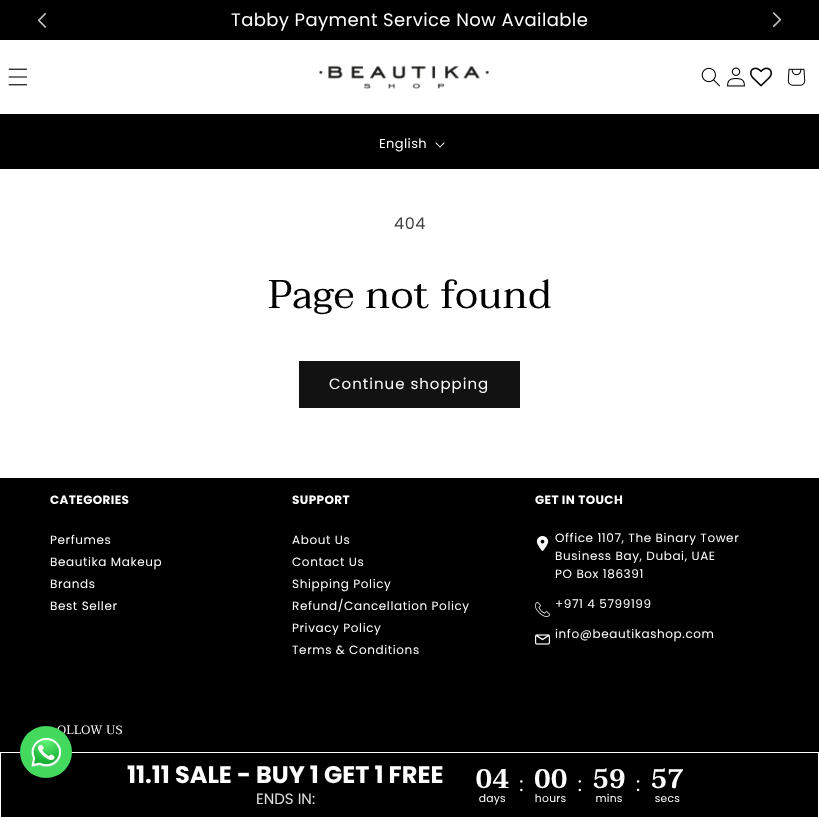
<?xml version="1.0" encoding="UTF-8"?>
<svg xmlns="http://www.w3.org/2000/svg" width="819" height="818">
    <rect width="100%" height="100%" fill="#FFFFFF"/>
    <rect x="0" y="0" width="819" height="40" fill="#000000"/>
    <image x="37" y="12" width="10" height="16" href="img_01.png"/>
    <text x="231" y="26" font-family="Poppins" font-size="18" letter-spacing="0.4" fill="#FFFFFF">Tabby Payment Service Now Available</text>
    <image x="772" y="12" width="10" height="16" href="img_02.png"/>
    <image x="8" y="68" width="20" height="18" href="img_03.png"/>
    <image x="318" y="65" width="171" height="24" href="img_04.png"/>
    <image x="701" y="67" width="19" height="20" href="img_05.png"/>
    <image x="727" y="67" width="18" height="20" href="img_06.png"/>
    <image x="750" y="67" width="22" height="20" href="img_07.png"/>
    <image x="787" y="68" width="19" height="18" href="img_08.png"/>
    <rect x="0" y="114" width="819" height="55" fill="#000000"/>
    <text x="379" y="148" font-family="Poppins" font-size="13" letter-spacing="0.4" fill="#FFFFFF">English</text>
    <image x="435" y="142" width="10" height="6" href="img_09.png"/>
    <text x="394" y="229" font-family="Poppins" font-size="16" letter-spacing="0.6" fill="#404040">404</text>
    <text x="268" y="308" font-family="Taviraj" font-size="40" letter-spacing="0.4" fill="#000000">Page not found</text>
    <rect x="299" y="361" width="221" height="47" fill="#121212"/>
    <text x="329" y="389" font-family="Poppins" font-size="15" letter-spacing="1" fill="#FFFFFF">Continue shopping</text>
    <rect x="0" y="478" width="819" height="274" fill="#000000"/>
    <text x="50" y="504" font-family="Poppins" font-size="12" font-weight="700" letter-spacing="0.4" fill="#FFFFFF">CATEGORIES</text>
    <text font-family="Poppins" font-size="12" letter-spacing="0.6" fill="#FFFFFF">
        <tspan x="50" y="544">Perfumes</tspan>
        <tspan x="50" y="566">Beautika Makeup</tspan>
        <tspan x="50" y="588">Brands</tspan>
        <tspan x="50" y="610">Best Seller</tspan>
    </text>
    <text x="292" y="504" font-family="Poppins" font-size="12" font-weight="700" letter-spacing="0.4" fill="#FFFFFF">SUPPORT</text>
    <text font-family="Poppins" font-size="12" letter-spacing="0.6" fill="#FFFFFF">
        <tspan x="292" y="544">About Us</tspan>
        <tspan x="292" y="566">Contact Us</tspan>
        <tspan x="292" y="588">Shipping Policy</tspan>
        <tspan x="292" y="610">Refund/Cancellation Policy</tspan>
        <tspan x="292" y="632">Privacy Policy</tspan>
        <tspan x="292" y="654">Terms &amp; Conditions</tspan>
    </text>
    <text x="535" y="504" font-family="Poppins" font-size="12" font-weight="700" letter-spacing="0.4" fill="#FFFFFF">GET IN TOUCH</text>
    <image x="536" y="536" width="13" height="15" href="img_10.png"/>
    <text font-family="Poppins" font-size="12" letter-spacing="0.6" fill="#FFFFFF">
        <tspan x="555" y="542">Office 1107, The Binary Tower</tspan>
        <tspan x="555" y="560">Business Bay, Dubai, UAE</tspan>
        <tspan x="555" y="578">PO Box 186391</tspan>
    </text>
    <image x="535" y="602" width="15" height="15" href="img_11.png"/>
    <text x="555" y="608" font-family="Poppins" font-size="12" letter-spacing="0.6" fill="#FFFFFF">+971 4 5799199</text>
    <image x="535" y="634" width="15" height="11" href="img_12.png"/>
    <text x="555" y="638" font-family="Poppins" font-size="12" letter-spacing="0.6" fill="#FFFFFF">info@beautikashop.com</text>
    <text x="57" y="734" font-family="Taviraj" font-size="12" letter-spacing="0.4" fill="#FFFFFF">OLLOW US</text>
    <rect x="1" y="753" width="817" height="64" fill="#000000"/>
    <circle cx="46" cy="752" r="26" fill="#42D95D"/>
    <image x="31" y="737" width="31" height="31" href="img_13.png"/>
    <text x="127" y="783" font-family="Poppins" font-size="24" font-weight="700" fill="#FFFFFF">11.11 SALE - BUY 1 GET 1 FREE</text>
    <text x="256" y="804" font-family="Poppins" font-size="15" fill="#E0E0E0">ENDS IN:</text>
    <image x="476" y="768" width="207" height="37" href="img_14.png"/>
</svg>
